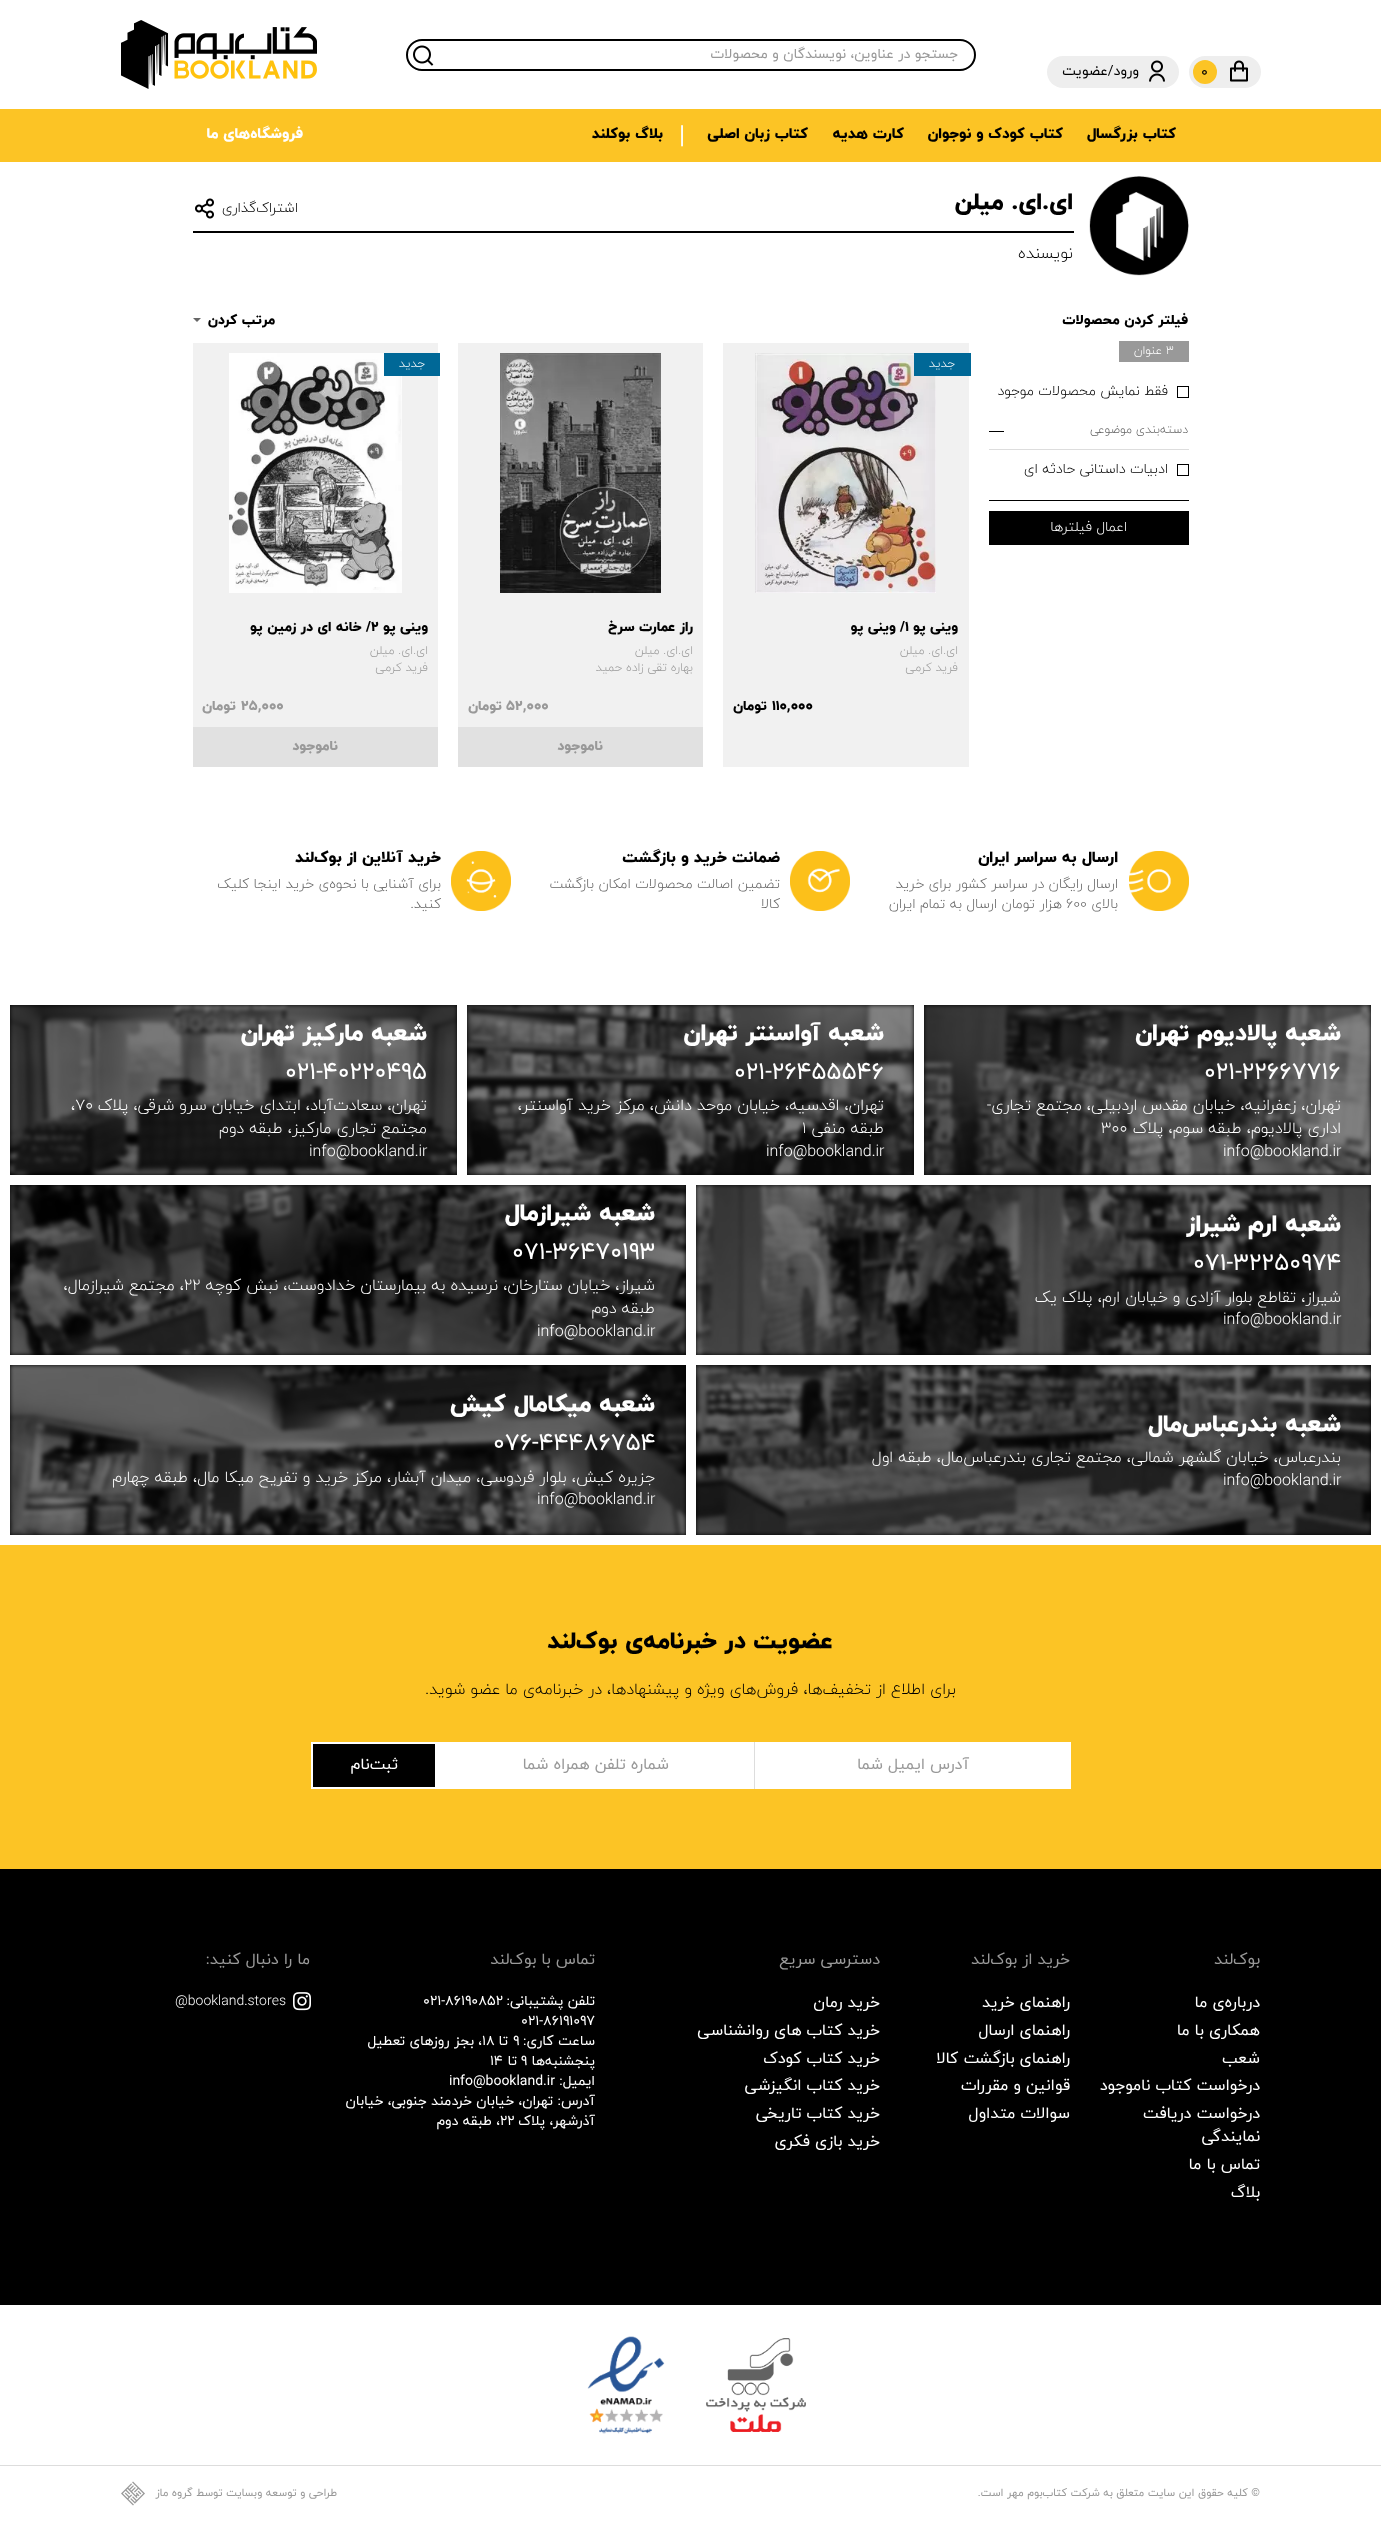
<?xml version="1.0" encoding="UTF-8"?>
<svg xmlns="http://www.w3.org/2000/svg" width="1381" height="2548">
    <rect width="100%" height="100%" fill="#FFFFFF"/>
    <rect x="407" y="40" width="568" height="30" rx="15" fill="none" stroke="#000000" stroke-width="2"/>
    <text x="958" y="58" font-family="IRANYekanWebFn" font-size="14" direction="rtl" fill="#999999">جستجو در عناوین، نویسندگان و محصولات</text>
    <image x="413" y="45" width="21" height="21" href="img_01.png"/>
    <image x="121" y="20" width="196" height="69" href="img_02.png"/>
    <rect x="1189" y="56" width="72" height="32" rx="16" fill="#EEEEEE"/>
    <image x="1230" y="60" width="18" height="22" href="img_03.png"/>
    <circle cx="1205" cy="72" r="12" fill="#FCC425"/>
    <text x="1201" y="76" font-family="IRANYekanWebFn" font-size="14" fill="#000000">0</text>
    <rect x="1047" y="56" width="132" height="32" rx="16" fill="#EEEEEE"/>
    <image x="1149" y="60" width="16" height="22" href="img_04.png"/>
    <text x="1139" y="75" font-family="IRANYekanWebFn" font-size="14" direction="rtl" fill="#000000">ورود/عضویت</text>
    <rect x="0" y="109" width="1381" height="53" fill="#FCC425"/>
    <text x="1176" y="138" font-family="IRANYekanWebFn" font-size="15" font-weight="800" direction="rtl" fill="#000000">کتاب بزرگسال</text>
    <text x="1063" y="138" font-family="IRANYekanWebFn" font-size="15" font-weight="800" direction="rtl" fill="#000000">کتاب کودک و نوجوان</text>
    <text x="904" y="138" font-family="IRANYekanWebFn" font-size="15" font-weight="800" direction="rtl" fill="#000000">کارت هدیه</text>
    <text x="808" y="138" font-family="IRANYekanWebFn" font-size="15" font-weight="800" direction="rtl" fill="#000000">کتاب زبان اصلی</text>
    <text x="679" y="143" font-family="IRANYekanWebFn" font-size="25" fill="#FFFFFF">|</text>
    <text x="663" y="138" font-family="IRANYekanWebFn" font-size="15" font-weight="800" direction="rtl" fill="#000000">بلاگ بوکلند</text>
    <text x="303" y="138" font-family="IRANYekanWebFn" font-size="15" font-weight="800" direction="rtl" fill="#FFFFFF">فروشگاه‌های ما</text>
    <image x="1089" y="176" width="100" height="100" href="img_05.png"/>
    <rect x="193" y="231" width="881" height="2" fill="#000000"/>
    <text x="1073" y="209" font-family="IRANYekanWebFn" font-size="24" font-weight="800" direction="rtl" fill="#000000">ای.ای. میلن</text>
    <text x="298" y="212" font-family="IRANYekanWebFn" font-size="14" font-weight="300" direction="rtl" fill="#000000">اشتراک‌گذاری</text>
    <image x="195" y="198" width="19" height="21" href="img_06.png"/>
    <text x="1073" y="258" font-family="IRANYekanWebFn" font-size="16" font-weight="300" direction="rtl" fill="#000000">نویسنده</text>
    <text x="1188" y="324" font-family="IRANYekanWebFn" font-size="14" font-weight="800" direction="rtl" fill="#000000">فیلتر کردن محصولات</text>
    <rect x="1119" y="341" width="70" height="21" fill="#999999"/>
    <text x="1166" y="354" font-family="IRANYekanWebFn" font-size="12" font-weight="300" fill="#FFFFFF">3</text>
    <text x="1162" y="354" font-family="IRANYekanWebFn" font-size="12" font-weight="300" direction="rtl" fill="#FFFFFF">عنوان</text>
    <rect x="1177.5" y="386.5" width="11" height="11" fill="none" stroke="#000000"/>
    <text x="1168" y="395" font-family="IRANYekanWebFn" font-size="14" font-weight="300" direction="rtl" fill="#000000">فقط نمایش محصولات موجود</text>
    <rect x="989" y="500" width="200" height="1" fill="#000000"/>
    <text x="1188" y="433" font-family="IRANYekanWebFn" font-size="12" font-weight="300" direction="rtl" fill="#666666">دسته‌بندی موضوعی</text>
    <rect x="989" y="431" width="15" height="1" fill="#000000"/>
    <rect x="989" y="449" width="200" height="1" fill="#DDDDDD"/>
    <rect x="1177.5" y="464.5" width="11" height="11" fill="none" stroke="#000000"/>
    <text x="1168" y="473" font-family="IRANYekanWebFn" font-size="14" font-weight="300" direction="rtl" fill="#000000">ادبیات داستانی حادثه ای</text>
    <rect x="989" y="511" width="200" height="34" fill="#000000"/>
    <text x="1127" y="531" font-family="IRANYekanWebFn" font-size="14" font-weight="300" direction="rtl" fill="#FFFFFF">اعمال فیلترها</text>
    <text x="275" y="324" font-family="IRANYekanWebFn" font-size="14" font-weight="800" direction="rtl" fill="#000000">مرتب کردن</text>
    <path d="M 193 318 H 201 L 197 322 Z" fill="#666666"/>
    <rect x="723" y="343" width="246" height="424" fill="#F1F1F1"/>
    <image x="755" y="353" width="181" height="240" href="img_07.png"/>
    <rect x="914" y="353" width="57" height="23" fill="#006897"/>
    <text x="955" y="367" font-family="IRANYekanWebFn" font-size="12" font-weight="300" direction="rtl" fill="#FFFFFF">جدید</text>
    <text x="958" y="631" font-family="IRANYekanWebFn" font-size="14" font-weight="800" direction="rtl" fill="#000000">وینی پو</text>
    <text x="905" y="631" font-family="IRANYekanWebFn" font-size="14" font-weight="800" direction="rtl" fill="#000000">/ وینی پو</text>
    <text x="905" y="631" font-family="IRANYekanWebFn" font-size="14" font-weight="800" fill="#000000">1</text>
    <text font-family="IRANYekanWebFn" font-size="12" font-weight="300" direction="rtl" fill="#999999">
        <tspan x="958" y="654">ای.ای. میلن</tspan>
        <tspan x="958" y="671">فرید کرمی</tspan>
    </text>
    <text x="772" y="710" font-family="IRANYekanWebFn" font-size="14" font-weight="800" fill="#000000">110,000</text>
    <text x="767" y="710" font-family="IRANYekanWebFn" font-size="14" font-weight="800" direction="rtl" fill="#000000">تومان</text>
    <rect x="458" y="343" width="245" height="384" fill="#F1F1F1"/>
    <image x="500" y="353" width="161" height="240" href="img_08.png"/>
    <text x="693" y="631" font-family="IRANYekanWebFn" font-size="14" font-weight="800" direction="rtl" fill="#000000">راز عمارت سرخ</text>
    <text font-family="IRANYekanWebFn" font-size="12" font-weight="300" direction="rtl" fill="#999999">
        <tspan x="693" y="654">ای.ای. میلن</tspan>
        <tspan x="693" y="671">بهاره تقی زاده حمید</tspan>
    </text>
    <text x="506" y="710" font-family="IRANYekanWebFn" font-size="14" font-weight="800" fill="#999999">52,000</text>
    <text x="502" y="710" font-family="IRANYekanWebFn" font-size="14" font-weight="800" direction="rtl" fill="#999999">تومان</text>
    <rect x="458" y="727" width="245" height="40" fill="#E1E1E1"/>
    <text x="603" y="750" font-family="IRANYekanWebFn" font-size="14" font-weight="800" direction="rtl" fill="#999999">ناموجود</text>
    <rect x="193" y="343" width="245" height="384" fill="#F1F1F1"/>
    <image x="229" y="353" width="173" height="240" href="img_09.png"/>
    <rect x="384" y="353" width="56" height="23" fill="#006897"/>
    <text x="425" y="367" font-family="IRANYekanWebFn" font-size="12" font-weight="300" direction="rtl" fill="#FFFFFF">جدید</text>
    <text x="428" y="631" font-family="IRANYekanWebFn" font-size="14" font-weight="800" direction="rtl" fill="#000000">وینی پو</text>
    <text x="371" y="631" font-family="IRANYekanWebFn" font-size="14" font-weight="800" direction="rtl" fill="#000000">/ خانه ای در زمین پو</text>
    <text x="371" y="631" font-family="IRANYekanWebFn" font-size="14" font-weight="800" fill="#000000">2</text>
    <text font-family="IRANYekanWebFn" font-size="12" font-weight="300" direction="rtl" fill="#999999">
        <tspan x="428" y="654">ای.ای. میلن</tspan>
        <tspan x="428" y="671">فرید کرمی</tspan>
    </text>
    <text x="241" y="710" font-family="IRANYekanWebFn" font-size="14" font-weight="800" fill="#999999">25,000</text>
    <text x="236" y="710" font-family="IRANYekanWebFn" font-size="14" font-weight="800" direction="rtl" fill="#999999">تومان</text>
    <rect x="193" y="727" width="245" height="40" fill="#E1E1E1"/>
    <text x="338" y="750" font-family="IRANYekanWebFn" font-size="14" font-weight="800" direction="rtl" fill="#999999">ناموجود</text>
    <image x="1129" y="851" width="60" height="60" href="img_10.png"/>
    <text x="1118" y="862" font-family="IRANYekanWebFn" font-size="16" font-weight="800" direction="rtl" fill="#000000">ارسال به سراسر ایران</text>
    <text font-family="IRANYekanWebFn" font-size="14" font-weight="300" direction="rtl" fill="#666666">
        <tspan x="1118" y="888">ارسال رایگان در سراسر کشور برای خرید</tspan>
        <tspan x="1118" y="908">بالای</tspan>
    </text>
    <text x="1066" y="908" font-family="IRANYekanWebFn" font-size="14" font-weight="300" fill="#666666">600</text>
    <text x="1062" y="908" font-family="IRANYekanWebFn" font-size="14" font-weight="300" direction="rtl" fill="#666666">هزار تومان ارسال به تمام ایران</text>
    <image x="790" y="851" width="60" height="60" href="img_11.png"/>
    <text x="780" y="862" font-family="IRANYekanWebFn" font-size="16" font-weight="800" direction="rtl" fill="#000000">ضمانت خرید و بازگشت</text>
    <text font-family="IRANYekanWebFn" font-size="14" font-weight="300" direction="rtl" fill="#666666">
        <tspan x="780" y="888">تضمین اصالت محصولات امکان بازگشت</tspan>
        <tspan x="780" y="908">کالا</tspan>
    </text>
    <image x="451" y="851" width="60" height="60" href="img_12.png"/>
    <text x="441" y="862" font-family="IRANYekanWebFn" font-size="16" font-weight="800" direction="rtl" fill="#000000">خرید آنلاین از بوک‌لند</text>
    <text font-family="IRANYekanWebFn" font-size="14" font-weight="300" direction="rtl" fill="#666666">
        <tspan x="441" y="888">برای آشنایی با نحوه‌ی خرید اینجا کلیک</tspan>
        <tspan x="441" y="908">کنید.</tspan>
    </text>
    <rect x="924" y="1005" width="447" height="170" fill="#000000"/>
    <image x="924" y="1005" width="447" height="170" href="img_13.png"/>
    <text x="1341" y="1040" font-family="IRANYekanWebFn" font-size="24" font-weight="800" direction="rtl" fill="#FFFFFF">شعبه پالادیوم تهران</text>
    <text x="1204" y="1079" font-family="IRANYekanWebFn" font-size="24" fill="#FFFFFF">۰۲۱-۲۲۶۶۷۷۱۶</text>
    <text font-family="IRANYekanWebFn" font-size="16" font-weight="300" direction="rtl" fill="#FFFFFF">
        <tspan x="1341" y="1110">تهران، زعفرانیه، خیابان مقدس اردبیلی، مجتمع تجاری-</tspan>
        <tspan x="1341" y="1133">اداری پالادیوم، طبقه سوم، پلاک</tspan>
    </text>
    <text x="1101" y="1133" font-family="IRANYekanWebFn" font-size="16" font-weight="300" fill="#FFFFFF">300</text>
    <text x="1223" y="1156" font-family="IRANYekanWebFn" font-size="16" font-weight="300" fill="#FFFFFF">info@bookland.ir</text>
    <rect x="467" y="1005" width="447" height="170" fill="#000000"/>
    <image x="467" y="1005" width="447" height="170" href="img_14.png"/>
    <text x="884" y="1040" font-family="IRANYekanWebFn" font-size="24" font-weight="800" direction="rtl" fill="#FFFFFF">شعبه آواسنتر تهران</text>
    <text x="734" y="1079" font-family="IRANYekanWebFn" font-size="24" fill="#FFFFFF">۰۲۱-۲۶۴۵۵۵۴۶</text>
    <text font-family="IRANYekanWebFn" font-size="16" font-weight="300" direction="rtl" fill="#FFFFFF">
        <tspan x="884" y="1110">تهران، اقدسیه، خیابان موحد دانش، مرکز خرید آواسنتر،</tspan>
        <tspan x="884" y="1133">طبقه منفی</tspan>
    </text>
    <text x="802" y="1133" font-family="IRANYekanWebFn" font-size="16" font-weight="300" fill="#FFFFFF">1</text>
    <text x="766" y="1156" font-family="IRANYekanWebFn" font-size="16" font-weight="300" fill="#FFFFFF">info@bookland.ir</text>
    <rect x="10" y="1005" width="447" height="170" fill="#000000"/>
    <image x="10" y="1005" width="447" height="170" href="img_15.png"/>
    <text x="427" y="1040" font-family="IRANYekanWebFn" font-size="24" font-weight="800" direction="rtl" fill="#FFFFFF">شعبه مارکیز تهران</text>
    <text x="285" y="1079" font-family="IRANYekanWebFn" font-size="24" fill="#FFFFFF">021-40220495</text>
    <text x="427" y="1110" font-family="IRANYekanWebFn" font-size="16" font-weight="300" direction="rtl" fill="#FFFFFF">تهران، سعادت‌آباد، ابتدای خیابان سرو شرقی، پلاک</text>
    <text x="71" y="1110" font-family="IRANYekanWebFn" font-size="16" font-weight="300" fill="#FFFFFF">،۷0</text>
    <text x="427" y="1133" font-family="IRANYekanWebFn" font-size="16" font-weight="300" direction="rtl" fill="#FFFFFF">مجتمع تجاری مارکیز، طبقه دوم</text>
    <text x="309" y="1156" font-family="IRANYekanWebFn" font-size="16" font-weight="300" fill="#FFFFFF">info@bookland.ir</text>
    <rect x="696" y="1185" width="675" height="170" fill="#000000"/>
    <image x="696" y="1185" width="675" height="170" href="img_16.png"/>
    <text x="1341" y="1231" font-family="IRANYekanWebFn" font-size="24" font-weight="800" direction="rtl" fill="#FFFFFF">شعبه ارم شیراز</text>
    <text x="1193" y="1270" font-family="IRANYekanWebFn" font-size="24" fill="#FFFFFF">۰۷۱-۳۲۲۵۰۹۷۴</text>
    <text x="1341" y="1302" font-family="IRANYekanWebFn" font-size="16" font-weight="300" direction="rtl" fill="#FFFFFF">شیراز، تقاطع بلوار آزادی و خیابان ارم، پلاک یک</text>
    <text x="1223" y="1324" font-family="IRANYekanWebFn" font-size="16" font-weight="300" fill="#FFFFFF">info@bookland.ir</text>
    <rect x="10" y="1185" width="676" height="170" fill="#000000"/>
    <image x="10" y="1185" width="676" height="170" href="img_17.png"/>
    <text x="655" y="1220" font-family="IRANYekanWebFn" font-size="24" font-weight="800" direction="rtl" fill="#FFFFFF">شعبه شیراز‌‌مال</text>
    <text x="512" y="1259" font-family="IRANYekanWebFn" font-size="24" fill="#FFFFFF">071-36470193</text>
    <text x="655" y="1290" font-family="IRANYekanWebFn" font-size="16" font-weight="300" direction="rtl" fill="#FFFFFF">شیراز، خیابان ستارخان، نرسیده به بیمارستان خدادوست، نبش کوچه</text>
    <text x="184" y="1290" font-family="IRANYekanWebFn" font-size="16" font-weight="300" fill="#FFFFFF">22</text>
    <text x="184" y="1290" font-family="IRANYekanWebFn" font-size="16" font-weight="300" direction="rtl" fill="#FFFFFF">، مجتمع شیراز‌مال،</text>
    <text x="655" y="1313" font-family="IRANYekanWebFn" font-size="16" font-weight="300" direction="rtl" fill="#FFFFFF">طبقه دوم</text>
    <text x="537" y="1336" font-family="IRANYekanWebFn" font-size="16" font-weight="300" fill="#FFFFFF">info@bookland.ir</text>
    <rect x="696" y="1365" width="675" height="170" fill="#000000"/>
    <image x="696" y="1365" width="675" height="170" href="img_18.png"/>
    <text x="1341" y="1431" font-family="IRANYekanWebFn" font-size="24" font-weight="800" direction="rtl" fill="#FFFFFF">شعبه بندرعباس‌مال</text>
    <text x="1341" y="1462" font-family="IRANYekanWebFn" font-size="16" font-weight="300" direction="rtl" fill="#FFFFFF">بندرعباس، خیابان گلشهر شمالی، مجتمع تجاری بندرعباس‌مال، طبقه اول</text>
    <text x="1223" y="1485" font-family="IRANYekanWebFn" font-size="16" font-weight="300" fill="#FFFFFF">info@bookland.ir</text>
    <rect x="10" y="1365" width="676" height="170" fill="#000000"/>
    <image x="10" y="1365" width="676" height="170" href="img_19.png"/>
    <text x="655" y="1411" font-family="IRANYekanWebFn" font-size="24" font-weight="800" direction="rtl" fill="#FFFFFF">شعبه میکامال کیش</text>
    <text x="493" y="1450" font-family="IRANYekanWebFn" font-size="24" fill="#FFFFFF">076-44486754</text>
    <text x="655" y="1482" font-family="IRANYekanWebFn" font-size="16" font-weight="300" direction="rtl" fill="#FFFFFF">جزیره کیش، بلوار فردوسی، میدان آبشار، مرکز خرید و تفریح میکا مال، طبقه چهارم</text>
    <text x="537" y="1504" font-family="IRANYekanWebFn" font-size="16" font-weight="300" fill="#FFFFFF">info@bookland.ir</text>
    <rect x="0" y="1545" width="1381" height="324" fill="#FCC425"/>
    <text x="833" y="1648" font-family="IRANYekanWebFn" font-size="24" font-weight="800" direction="rtl" fill="#000000">عضویت در خبرنامه‌ی بوک‌لند</text>
    <text x="956" y="1694" font-family="IRANYekanWebFn" font-size="16" font-weight="300" direction="rtl" fill="#000000">برای اطلاع از تخفیف‌ها، فروش‌های ویژه و پیشنهادها، در خبرنامه‌ی ما عضو شوید.</text>
    <rect x="311" y="1742" width="760" height="47" fill="#FFFFFF"/>
    <rect x="754" y="1742" width="1" height="47" fill="#DDDDDD"/>
    <text x="969" y="1769" font-family="IRANYekanWebFn" font-size="16" direction="rtl" fill="#999999">آدرس ایمیل شما</text>
    <text x="669" y="1769" font-family="IRANYekanWebFn" font-size="16" direction="rtl" fill="#999999">شماره تلفن همراه شما</text>
    <rect x="313" y="1744" width="122" height="43" fill="#000000"/>
    <text x="398" y="1769" font-family="IRANYekanWebFn" font-size="16" direction="rtl" fill="#FFFFFF">ثبت‌نام</text>
    <rect x="0" y="1869" width="1381" height="436" fill="#000000"/>
    <text x="1260" y="1964" font-family="IRANYekanWebFn" font-size="16" direction="rtl" fill="#999999">بوک‌لند</text>
    <text font-family="IRANYekanWebFn" font-size="16" direction="rtl" fill="#FFFFFF">
        <tspan x="1260" y="2007">درباره‌ی ما</tspan>
        <tspan x="1260" y="2035">همکاری با ما</tspan>
        <tspan x="1260" y="2063">شعب</tspan>
        <tspan x="1260" y="2090">درخواست کتاب ناموجود</tspan>
        <tspan x="1260" y="2118">درخواست دریافت</tspan>
        <tspan x="1260" y="2141">نمایندگی</tspan>
        <tspan x="1260" y="2169">تماس با ما</tspan>
        <tspan x="1260" y="2197">بلاگ</tspan>
    </text>
    <text x="1070" y="1964" font-family="IRANYekanWebFn" font-size="16" direction="rtl" fill="#999999">خرید از بوک‌لند</text>
    <text font-family="IRANYekanWebFn" font-size="16" direction="rtl" fill="#FFFFFF">
        <tspan x="1070" y="2007">راهنمای خرید</tspan>
        <tspan x="1070" y="2035">راهنمای ارسال</tspan>
        <tspan x="1070" y="2063">راهنمای بازگشت کالا</tspan>
        <tspan x="1070" y="2090">قوانین و مقررات</tspan>
        <tspan x="1070" y="2118">سوالات متداول</tspan>
    </text>
    <text x="880" y="1964" font-family="IRANYekanWebFn" font-size="16" direction="rtl" fill="#999999">دسترسی سریع</text>
    <text font-family="IRANYekanWebFn" font-size="16" direction="rtl" fill="#FFFFFF">
        <tspan x="880" y="2007">خرید رمان</tspan>
        <tspan x="880" y="2035">خرید کتاب های روانشناسی</tspan>
        <tspan x="880" y="2063">خرید کتاب کودک</tspan>
        <tspan x="880" y="2090">خرید کتاب انگیزشی</tspan>
        <tspan x="880" y="2118">خرید کتاب تاریخی</tspan>
        <tspan x="880" y="2146">خرید بازی فکری</tspan>
    </text>
    <text x="595" y="1964" font-family="IRANYekanWebFn" font-size="16" direction="rtl" fill="#999999">تماس با بوک‌لند</text>
    <text x="595" y="2005" font-family="IRANYekanWebFn" font-size="14" direction="rtl" fill="#FFFFFF">تلفن پشتیبانی:</text>
    <text x="423" y="2005" font-family="IRANYekanWebFn" font-size="14" fill="#FFFFFF">021-۸۶۱۹۰۸۵۲</text>
    <text x="521" y="2025" font-family="IRANYekanWebFn" font-size="14" fill="#FFFFFF">021-۸۶۱۹۱۰۹۷</text>
    <text x="595" y="2045" font-family="IRANYekanWebFn" font-size="14" direction="rtl" fill="#FFFFFF">ساعت کاری:</text>
    <text x="513" y="2045" font-family="IRANYekanWebFn" font-size="14" fill="#FFFFFF">۹</text>
    <text x="508" y="2045" font-family="IRANYekanWebFn" font-size="14" direction="rtl" fill="#FFFFFF">تا</text>
    <text x="482" y="2045" font-family="IRANYekanWebFn" font-size="14" fill="#FFFFFF">۱۸</text>
    <text x="482" y="2045" font-family="IRANYekanWebFn" font-size="14" direction="rtl" fill="#FFFFFF">، بجز روزهای تعطیل</text>
    <text x="595" y="2065" font-family="IRANYekanWebFn" font-size="14" direction="rtl" fill="#FFFFFF">پنجشنبه‌ها</text>
    <text x="521" y="2065" font-family="IRANYekanWebFn" font-size="14" fill="#FFFFFF">9</text>
    <text x="517" y="2065" font-family="IRANYekanWebFn" font-size="14" direction="rtl" fill="#FFFFFF">تا</text>
    <text x="490" y="2065" font-family="IRANYekanWebFn" font-size="14" fill="#FFFFFF">14</text>
    <text x="595" y="2085" font-family="IRANYekanWebFn" font-size="14" direction="rtl" fill="#FFFFFF">ایمیل:</text>
    <text x="449" y="2085" font-family="IRANYekanWebFn" font-size="14" fill="#FFFFFF">info@bookland.ir</text>
    <text font-family="IRANYekanWebFn" font-size="14" direction="rtl" fill="#FFFFFF">
        <tspan x="595" y="2105">آدرس: تهران، خیابان خردمند جنوبی، خیابان</tspan>
        <tspan x="595" y="2125">آذرشهر، پلاک</tspan>
    </text>
    <text x="500" y="2125" font-family="IRANYekanWebFn" font-size="14" fill="#FFFFFF">22</text>
    <text x="500" y="2125" font-family="IRANYekanWebFn" font-size="14" direction="rtl" fill="#FFFFFF">، طبقه دوم</text>
    <text x="310" y="1964" font-family="IRANYekanWebFn" font-size="16" direction="rtl" fill="#999999">ما را دنبال کنید:</text>
    <image x="293" y="1992" width="18" height="19" href="img_20.png"/>
    <text x="175" y="2005" font-family="IRANYekanWebFn" font-size="14" font-weight="300" fill="#FFFFFF">@bookland.stores</text>
    <image x="706" y="2338" width="100" height="94" href="img_21.png"/>
    <image x="587" y="2336" width="78" height="98" href="img_22.png"/>
    <rect x="0" y="2465" width="1381" height="1" fill="#DDDDDD"/>
    <text x="1260" y="2496" font-family="IRANYekanWebFn" font-size="11" direction="rtl" fill="#999999">© کلیه حقوق این سایت متعلق به شرکت کتاب‌بوم مهر است.</text>
    <text x="337" y="2496" font-family="IRANYekanWebFn" font-size="11" direction="rtl" fill="#999999">طراحی و توسعه وبسایت توسط گروه ماز</text>
    <image x="121" y="2481" width="24" height="25" href="img_23.png"/>
</svg>
